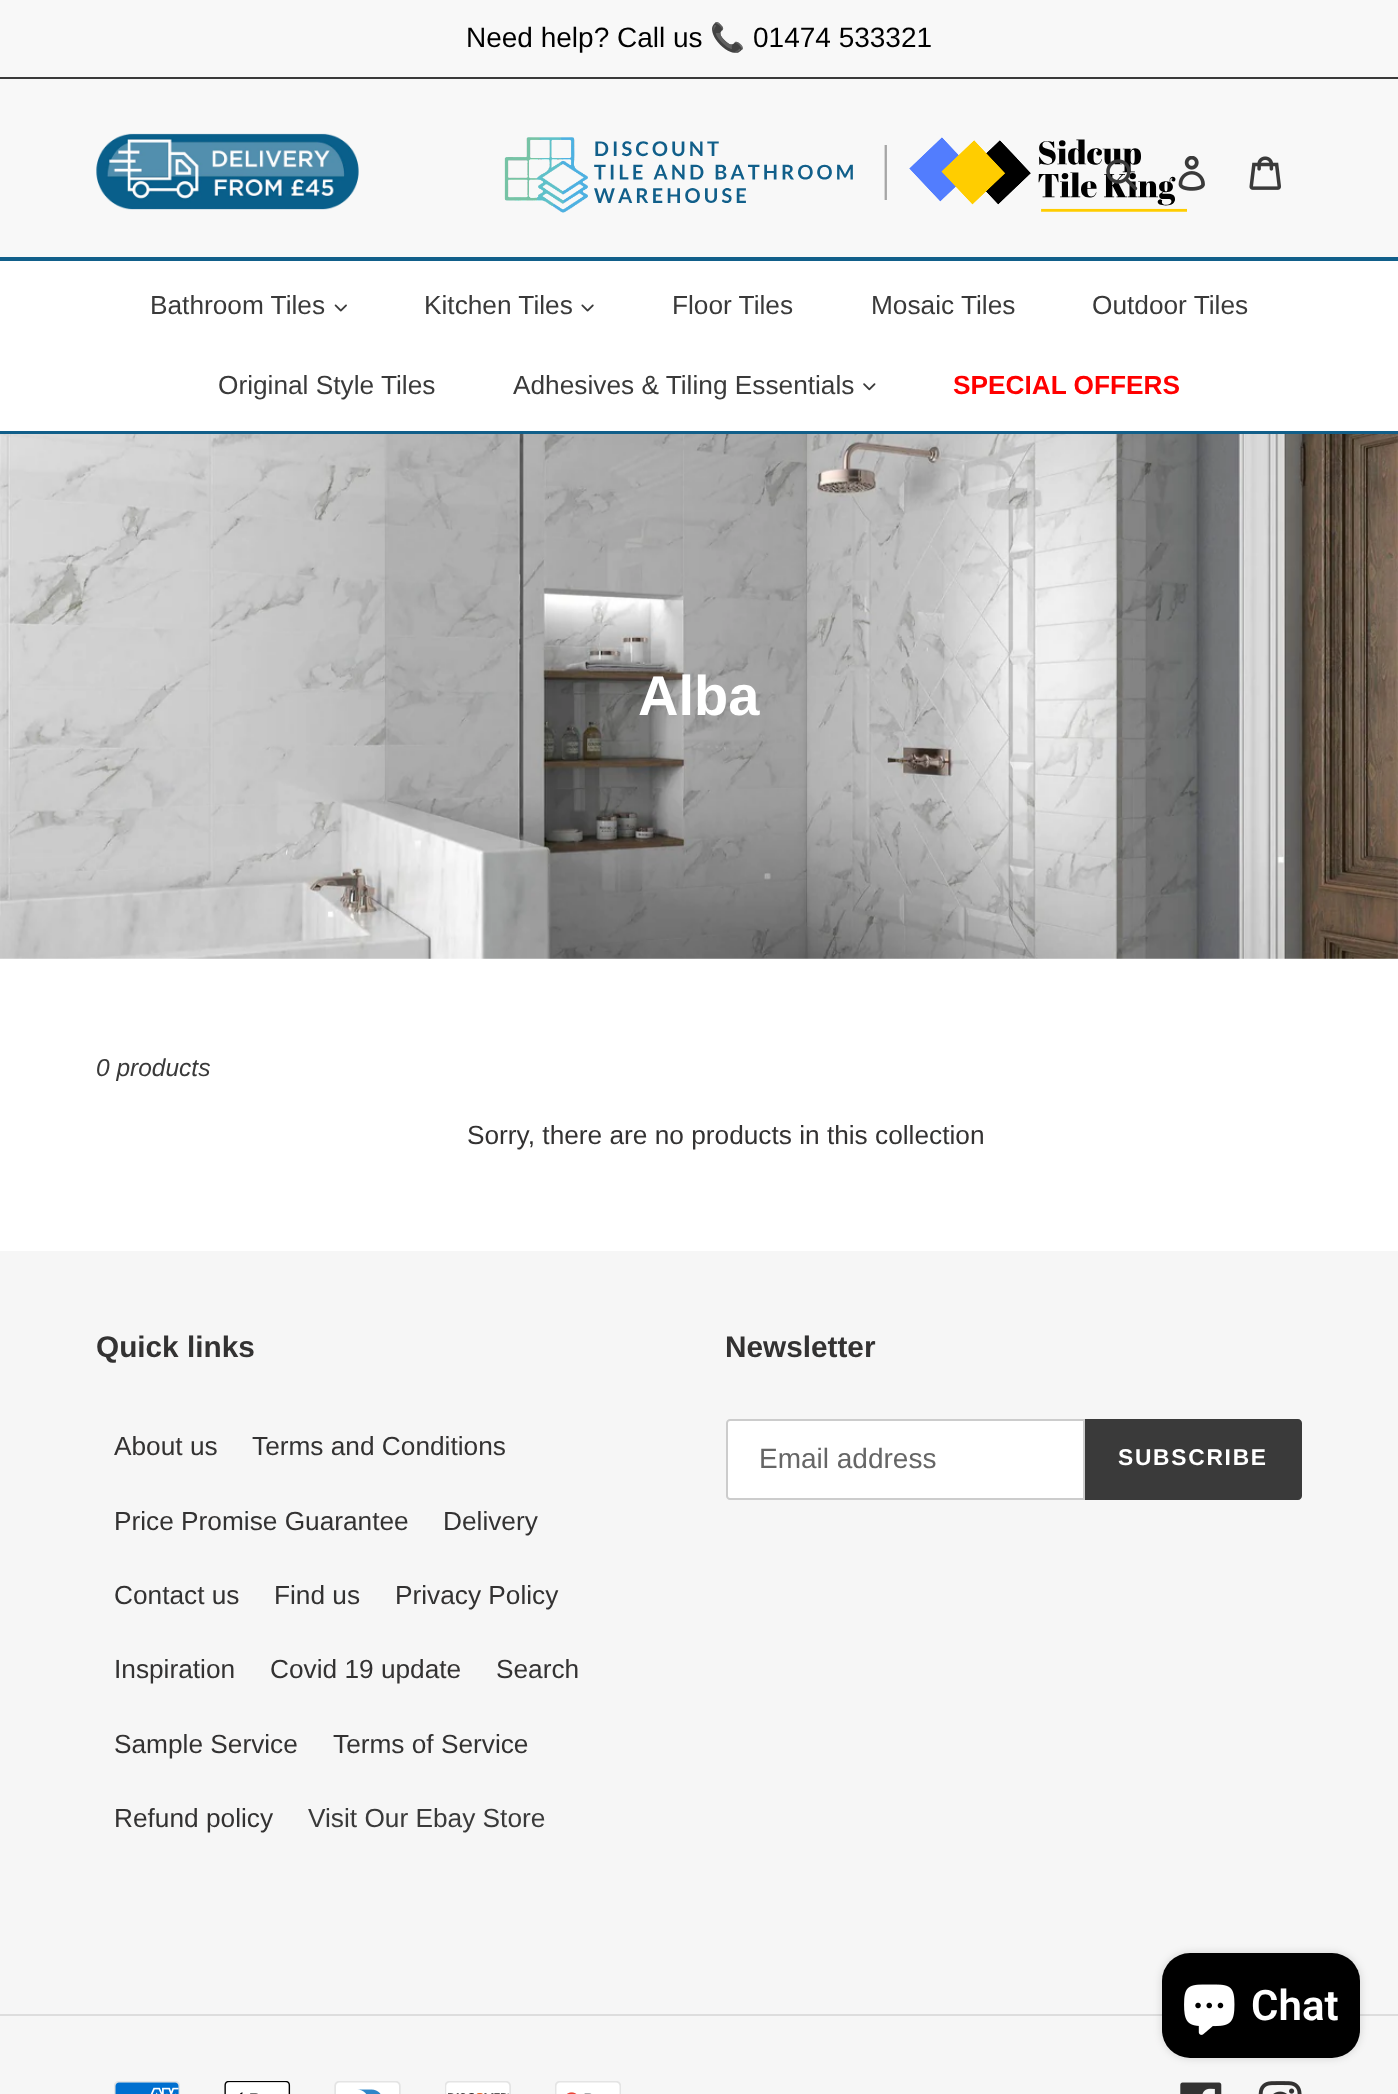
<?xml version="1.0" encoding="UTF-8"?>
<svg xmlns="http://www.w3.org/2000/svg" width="1398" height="2094">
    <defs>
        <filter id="blur1" x="-50%" y="-200%" width="200%" height="500%"><feGaussianBlur stdDeviation="4.5"/></filter>
    </defs>
    <rect width="100%" height="100%" fill="#FFFFFF"/>
    <rect x="0" y="0" width="1398" height="77" fill="#F8F8F8"/>
    <rect x="0" y="77" width="1398" height="2" fill="#3A3A3A"/>
    <text x="466" y="47" font-family="Liberation Sans" font-size="28" fill="#000000">Need help? Call us</text>
    <text x="710" y="47" font-family="Noto Color Emoji" font-size="28" fill="#000000">📞</text>
    <text x="753" y="47" font-family="Liberation Sans" font-size="28" fill="#000000">01474 533321</text>
    <rect x="0" y="79" width="1398" height="178" fill="#F8F8F8"/>
    <image x="96" y="133" width="263" height="77" href="img_01.png"/>
    <image x="504" y="137" width="683" height="76" href="img_02.png"/>
    <image x="1106" y="159" width="32" height="32" href="img_03.png"/>
    <image x="1178" y="156" width="27" height="35" href="img_04.png"/>
    <image x="1249" y="156" width="32" height="34" href="img_05.png"/>
    <rect x="0" y="257" width="1398" height="4" fill="#115F8A"/>
    <rect x="0" y="431" width="1398" height="3" fill="#115F8A"/>
    <text x="150" y="314" font-family="Liberation Sans" font-size="26.25" fill="#3A3A3A">Bathroom Tiles</text>
    <image x="334" y="304" width="13" height="8" href="img_06.png"/>
    <text x="424" y="314" font-family="Liberation Sans" font-size="26.25" fill="#3A3A3A">Kitchen Tiles</text>
    <image x="581" y="304" width="13" height="8" href="img_07.png"/>
    <text x="672" y="314" font-family="Liberation Sans" font-size="26.25" fill="#3A3A3A">Floor Tiles</text>
    <text x="871" y="314" font-family="Liberation Sans" font-size="26.25" fill="#3A3A3A">Mosaic Tiles</text>
    <text x="1092" y="314" font-family="Liberation Sans" font-size="26.25" fill="#3A3A3A">Outdoor Tiles</text>
    <text x="218" y="394" font-family="Liberation Sans" font-size="26.25" fill="#3A3A3A">Original Style Tiles</text>
    <text x="513" y="394" font-family="Liberation Sans" font-size="26.25" fill="#3A3A3A">Adhesives &amp; Tiling Essentials</text>
    <image x="863" y="383" width="13" height="8" href="img_08.png"/>
    <text x="953" y="394" font-family="Liberation Sans" font-size="26.25" font-weight="700" fill="#FF0000">SPECIAL OFFERS</text>
    <image x="0" y="434" width="1398" height="525" href="img_09.png"/>
    <text x="638" y="715" font-family="Liberation Sans" font-size="56" font-weight="700" fill="#FFFFFF">Alba</text>
    <text x="96" y="1076" font-family="Liberation Sans" font-size="24.5" font-style="italic" fill="#3A3A3A">0 products</text>
    <text x="467" y="1144" font-family="Liberation Sans" font-size="26.25" fill="#333232">Sorry, there are no products in this collection</text>
    <rect x="0" y="1251" width="1398" height="843" fill="#F6F6F6"/>
    <text x="96" y="1357" font-family="Liberation Sans" font-size="29.75" font-weight="700" fill="#333232">Quick links</text>
    <text x="114" y="1455" font-family="Liberation Sans" font-size="26.25" fill="#333232">About us</text>
    <text x="252" y="1455" font-family="Liberation Sans" font-size="26.25" fill="#333232">Terms and Conditions</text>
    <text x="114" y="1530" font-family="Liberation Sans" font-size="26.25" fill="#333232">Price Promise Guarantee</text>
    <text x="443" y="1530" font-family="Liberation Sans" font-size="26.25" fill="#333232">Delivery</text>
    <text x="114" y="1604" font-family="Liberation Sans" font-size="26.25" fill="#333232">Contact us</text>
    <text x="274" y="1604" font-family="Liberation Sans" font-size="26.25" fill="#333232">Find us</text>
    <text x="395" y="1604" font-family="Liberation Sans" font-size="26.25" fill="#333232">Privacy Policy</text>
    <text x="114" y="1678" font-family="Liberation Sans" font-size="26.25" fill="#333232">Inspiration</text>
    <text x="270" y="1678" font-family="Liberation Sans" font-size="26.25" fill="#333232">Covid 19 update</text>
    <text x="496" y="1678" font-family="Liberation Sans" font-size="26.25" fill="#333232">Search</text>
    <text x="114" y="1753" font-family="Liberation Sans" font-size="26.25" fill="#333232">Sample Service</text>
    <text x="333" y="1753" font-family="Liberation Sans" font-size="26.25" fill="#333232">Terms of Service</text>
    <text x="114" y="1827" font-family="Liberation Sans" font-size="26.25" fill="#333232">Refund policy</text>
    <text x="308" y="1827" font-family="Liberation Sans" font-size="26.25" fill="#3A3A3A">Visit Our Ebay Store</text>
    <text x="725" y="1357" font-family="Liberation Sans" font-size="29.75" font-weight="700" fill="#333232">Newsletter</text>
    <path d="M 730 1420 H 1084 V 1499 H 730 C 728.5 1499 727 1497.5 727 1496 V 1423 C 727 1421.5 728.5 1420 730 1420 Z" fill="#FFFFFF" stroke="#CCCCCC" stroke-width="2"/>
    <text x="759" y="1468" font-family="Liberation Sans" font-size="28" fill="#666666">Email address</text>
    <path d="M 1085 1419 H 1298 C 1300 1419 1302 1421 1302 1423 V 1496 C 1302 1498 1300 1500 1298 1500 H 1085 Z" fill="#3A3A3A"/>
    <text x="1118" y="1465" font-family="Liberation Sans" font-size="22.75" font-weight="700" letter-spacing="1.75" fill="#FFFFFF">SUBSCRIBE</text>
    <rect x="0" y="2014" width="1398" height="2" fill="#DDDDDD"/>
    <image x="114" y="2081" width="66" height="13" href="img_10.png"/>
    <image x="224" y="2081" width="67" height="13" href="img_11.png"/>
    <image x="334" y="2081" width="67" height="13" href="img_12.png"/>
    <image x="445" y="2081" width="66" height="13" href="img_13.png"/>
    <image x="555" y="2081" width="66" height="13" href="img_14.png"/>
    <image x="1180" y="2082" width="42" height="12" href="img_15.png"/>
    <image x="1258" y="2081" width="44" height="13" href="img_16.png"/>
    <rect x="1162" y="1953" width="198" height="105" rx="28" fill="#000000" fill-opacity="0.15" filter="url(#blur1)"/>
    <rect x="1162" y="1953" width="198" height="105" rx="28" fill="#000000"/>
    <image x="1184" y="1984" width="51" height="51" href="img_17.png"/>
    <text x="1251" y="2020" font-family="Roboto" font-size="42" font-weight="600" fill="#FFFFFF">Chat</text>
</svg>
